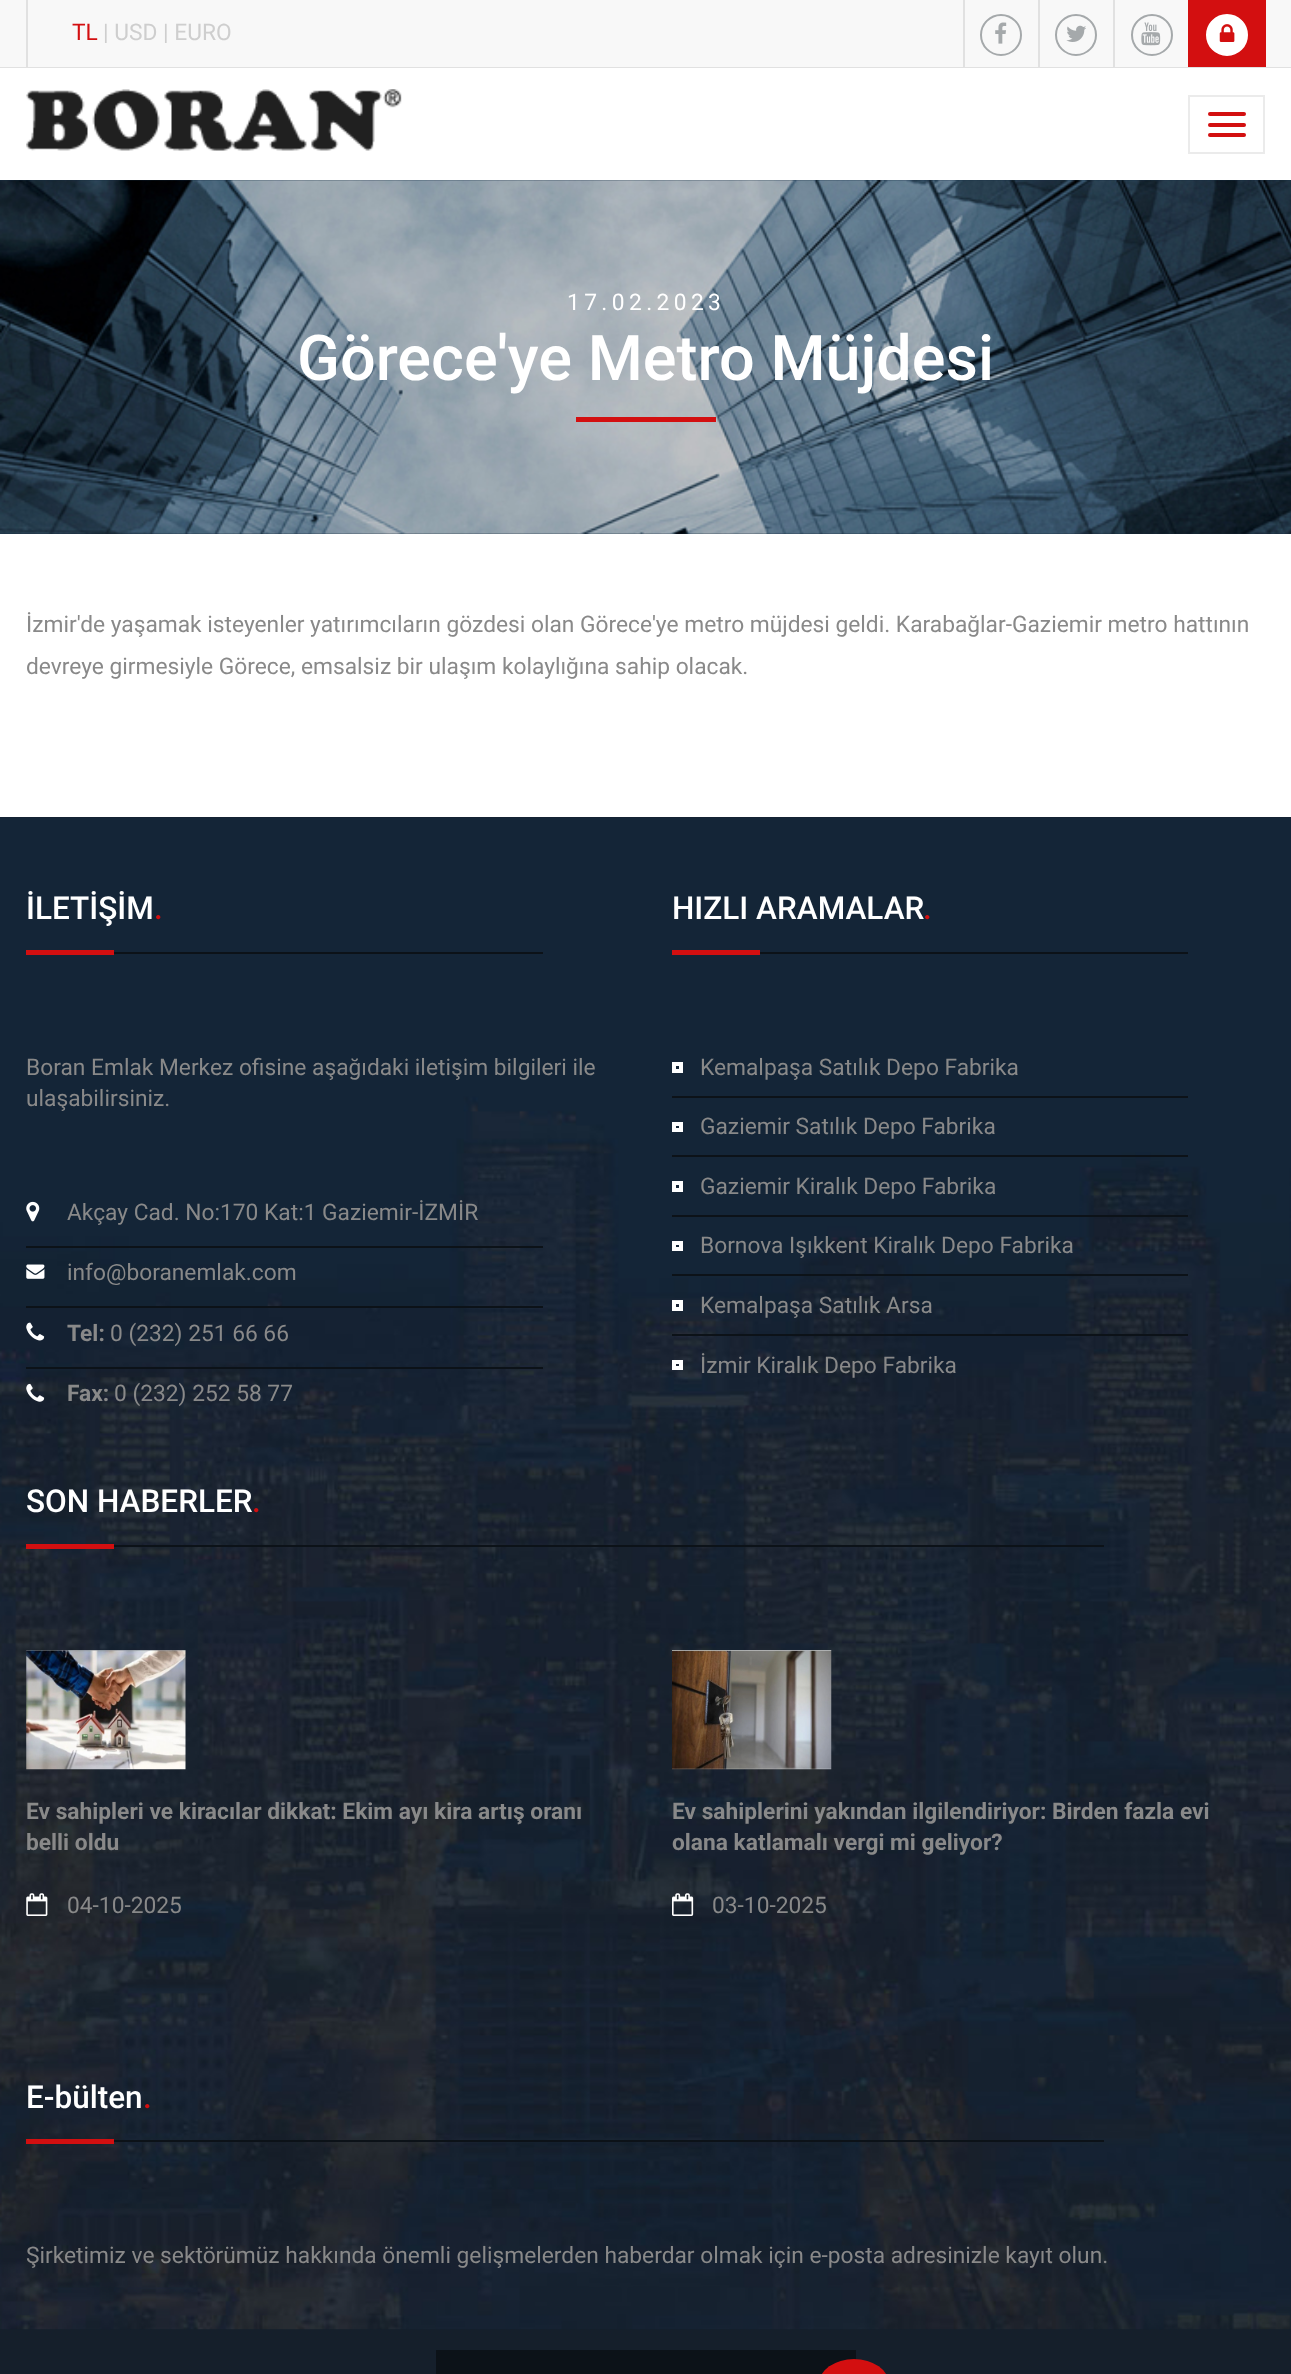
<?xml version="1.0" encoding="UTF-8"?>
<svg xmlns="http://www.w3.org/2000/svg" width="1291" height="2374">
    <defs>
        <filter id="blur1" x="-50%" y="-200%" width="200%" height="500%"><feGaussianBlur stdDeviation="4.5"/></filter>
        <filter id="blur2" x="-50%" y="-200%" width="200%" height="500%"><feGaussianBlur stdDeviation="9"/></filter>
    </defs>
    <rect width="100%" height="100%" fill="#FFFFFF"/>
    <image x="0" y="180" width="1291" height="354" href="img_01.png"/>
    <rect x="0" y="9" width="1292" height="180" fill="#000000" fill-opacity="0.2" filter="url(#blur1)"/>
    <rect x="0" y="0" width="1291" height="67" fill="#F8F8F8"/>
    <rect x="0" y="67" width="1291" height="1" fill="#E1E1E1"/>
    <rect x="26" y="0" width="2" height="67" fill="#E1E1E1"/>
    <text x="72" y="40" font-family="Roboto" font-size="22.75" fill="#D30F10">TL</text>
    <text x="103" y="40" font-family="Roboto" font-size="22.75" fill="#CECECE">| USD | EURO</text>
    <rect x="963" y="0" width="2" height="67" fill="#E1E1E1"/>
    <circle cx="1001" cy="35" r="20" fill="none" stroke="#A5A9AB" stroke-width="2"/>
    <image x="995" y="22" width="12" height="22" href="img_02.png"/>
    <rect x="1038" y="0" width="2" height="67" fill="#E1E1E1"/>
    <circle cx="1076" cy="35" r="20" fill="none" stroke="#A5A9AB" stroke-width="2"/>
    <image x="1066" y="25" width="20" height="17" href="img_03.png"/>
    <rect x="1113" y="0" width="2" height="67" fill="#E1E1E1"/>
    <circle cx="1152" cy="35" r="20" fill="none" stroke="#A5A9AB" stroke-width="2"/>
    <image x="1141" y="22" width="20" height="24" href="img_04.png"/>
    <rect x="1188" y="0" width="78" height="67" fill="#D30F10"/>
    <circle cx="1227" cy="35" r="20" fill="#FFFFFF" stroke="#FFFFFF" stroke-width="2"/>
    <image x="1219" y="24" width="16" height="18" href="img_05.png"/>
    <rect x="0" y="68" width="1291" height="112" fill="#FFFFFF"/>
    <image x="26" y="89" width="376" height="62" href="img_06.png"/>
    <rect x="1189" y="96" width="75" height="57" fill="none" stroke="#EBEBEB" stroke-width="2"/>
    <rect x="1208" y="112" width="38" height="4" rx="2" fill="#D30F10"/>
    <rect x="1208" y="123" width="38" height="4" rx="2" fill="#D30F10"/>
    <rect x="1208" y="133" width="38" height="4" rx="2" fill="#D30F10"/>
    <rect x="0" y="817" width="1291" height="1557" fill="#151F2B"/>
    <image x="0" y="817" width="1291" height="1513" href="img_08.png"/>
    <rect x="0" y="516" width="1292" height="284" fill="#000000" fill-opacity="0.35" filter="url(#blur2)"/>
    <image x="0" y="180" width="1291" height="354" href="img_07.png"/>
    <text x="567" y="310" font-family="Roboto" font-size="22.75" letter-spacing="4.4" fill="#FFFFFF">17.02.2023</text>
    <text x="297" y="380" font-family="Roboto" font-size="63" font-weight="500" fill="#FFFFFF">Görece'ye Metro Müjdesi</text>
    <rect x="576" y="417" width="140" height="5" fill="#D30F10"/>
    <rect x="0" y="534" width="1291" height="283" fill="#FFFFFF"/>
    <text font-family="Roboto" font-size="22.75" fill="#898989">
        <tspan x="26" y="632">İzmir'de yaşamak isteyenler yatırımcıların gözdesi olan Görece'ye metro müjdesi geldi. Karabağlar-Gaziemir metro hattının</tspan>
        <tspan x="26" y="674">devreye girmesiyle Görece, emsalsiz bir ulaşım kolaylığına sahip olacak.</tspan>
    </text>
    <text x="26" y="919" font-family="Roboto" font-size="31.5" font-weight="500" fill="#FFFFFF">İLETİŞİM</text>
    <text x="154" y="919" font-family="Roboto" font-size="31.5" font-weight="500" fill="#D30F10">.</text>
    <rect x="114" y="952" width="429" height="2" fill="#0C1218"/>
    <rect x="26" y="950" width="88" height="5" fill="#D30F10"/>
    <text font-family="Roboto" font-size="22.75" fill="#898989">
        <tspan x="26" y="1075">Boran Emlak Merkez ofisine aşağıdaki iletişim bilgileri ile</tspan>
        <tspan x="26" y="1106">ulaşabilirsiniz.</tspan>
    </text>
    <image x="26" y="1201" width="14" height="21" href="img_09.png"/>
    <text x="67" y="1220" font-family="Roboto" font-size="22.75" fill="#898989">Akçay Cad. No:170 Kat:1 Gaziemir-İZMİR</text>
    <rect x="26" y="1246" width="517" height="2" fill="#0C1218"/>
    <image x="26" y="1264" width="19" height="15" href="img_10.png"/>
    <text x="67" y="1280" font-family="Roboto" font-size="22.75" fill="#898989">info@boranemlak.com</text>
    <rect x="26" y="1306" width="517" height="2" fill="#0C1218"/>
    <image x="26" y="1322" width="19" height="19" href="img_11.png"/>
    <text x="67" y="1341" font-family="Roboto" font-size="22.75" font-weight="700" fill="#898989">Tel:</text>
    <text x="110" y="1341" font-family="Roboto" font-size="22.75" fill="#898989">0 (232) 251 66 66</text>
    <rect x="26" y="1367" width="517" height="2" fill="#0C1218"/>
    <image x="26" y="1383" width="19" height="19" href="img_12.png"/>
    <text x="67" y="1401" font-family="Roboto" font-size="22.75" font-weight="700" fill="#898989">Fax:</text>
    <text x="114" y="1401" font-family="Roboto" font-size="22.75" fill="#898989">0 (232) 252 58 77</text>
    <text x="672" y="919" font-family="Roboto" font-size="31.5" font-weight="500" fill="#FFFFFF">HIZLI ARAMALAR</text>
    <text x="923" y="919" font-family="Roboto" font-size="31.5" font-weight="500" fill="#D30F10">.</text>
    <rect x="760" y="952" width="428" height="2" fill="#0C1218"/>
    <rect x="672" y="950" width="88" height="5" fill="#D30F10"/>
    <rect x="672" y="1096" width="516" height="2" fill="#0C1218"/>
    <rect x="674" y="1064" width="7" height="7" fill="none" stroke="#FFFFFF" stroke-width="4"/>
    <text x="700" y="1075" font-family="Roboto" font-size="22.75" fill="#898989">Kemalpaşa Satılık Depo Fabrika</text>
    <rect x="672" y="1155" width="516" height="2" fill="#0C1218"/>
    <rect x="674" y="1124" width="7" height="6" fill="none" stroke="#FFFFFF" stroke-width="4"/>
    <text x="700" y="1134" font-family="Roboto" font-size="22.75" fill="#898989">Gaziemir Satılık Depo Fabrika</text>
    <rect x="672" y="1215" width="516" height="2" fill="#0C1218"/>
    <rect x="674" y="1183" width="7" height="7" fill="none" stroke="#FFFFFF" stroke-width="4"/>
    <text x="700" y="1194" font-family="Roboto" font-size="22.75" fill="#898989">Gaziemir Kiralık Depo Fabrika</text>
    <rect x="672" y="1274" width="516" height="2" fill="#0C1218"/>
    <rect x="674" y="1243" width="7" height="6" fill="none" stroke="#FFFFFF" stroke-width="4"/>
    <text x="700" y="1253" font-family="Roboto" font-size="22.75" fill="#898989">Bornova Işıkkent Kiralık Depo Fabrika</text>
    <rect x="672" y="1334" width="516" height="2" fill="#0C1218"/>
    <rect x="674" y="1302" width="7" height="7" fill="none" stroke="#FFFFFF" stroke-width="4"/>
    <text x="700" y="1313" font-family="Roboto" font-size="22.75" fill="#898989">Kemalpaşa Satılık Arsa</text>
    <rect x="674" y="1362" width="7" height="6" fill="none" stroke="#FFFFFF" stroke-width="4"/>
    <text x="700" y="1373" font-family="Roboto" font-size="22.75" fill="#898989">İzmir Kiralık Depo Fabrika</text>
    <text x="26" y="1512" font-family="Roboto" font-size="31.5" font-weight="500" fill="#FFFFFF">SON HABERLER</text>
    <text x="252" y="1512" font-family="Roboto" font-size="31.5" font-weight="500" fill="#D30F10">.</text>
    <rect x="114" y="1545" width="990" height="2" fill="#0C1218"/>
    <rect x="26" y="1544" width="88" height="5" fill="#D30F10"/>
    <image x="26" y="1650" width="160" height="120" href="img_13.png"/>
    <text font-family="Roboto" font-size="22.75" font-weight="700" fill="#898989">
        <tspan x="26" y="1819">Ev sahipleri ve kiracılar dikkat: Ekim ayı kira artış oranı</tspan>
        <tspan x="26" y="1850">belli oldu</tspan>
    </text>
    <image x="26" y="1893" width="22" height="23" href="img_14.png"/>
    <text x="67" y="1913" font-family="Roboto" font-size="22.75" fill="#898989">04-10-2025</text>
    <image x="672" y="1650" width="160" height="120" href="img_15.png"/>
    <text font-family="Roboto" font-size="22.75" font-weight="700" fill="#898989">
        <tspan x="672" y="1819">Ev sahiplerini yakından ilgilendiriyor: Birden fazla evi</tspan>
        <tspan x="672" y="1850">olana katlamalı vergi mi geliyor?</tspan>
    </text>
    <image x="672" y="1893" width="22" height="23" href="img_16.png"/>
    <text x="712" y="1913" font-family="Roboto" font-size="22.75" fill="#898989">03-10-2025</text>
    <text x="26" y="2108" font-family="Roboto" font-size="31.5" font-weight="500" fill="#FFFFFF">E-bülten</text>
    <text x="143" y="2108" font-family="Roboto" font-size="31.5" font-weight="500" fill="#D30F10">.</text>
    <rect x="114" y="2140" width="990" height="2" fill="#0C1218"/>
    <rect x="26" y="2139" width="88" height="5" fill="#D30F10"/>
    <text x="26" y="2263" font-family="Roboto" font-size="22.75" fill="#898989">Şirketimiz ve sektörümüz hakkında önemli gelişmelerden haberdar olmak için e-posta adresinizle kayıt olun.</text>
    <rect x="436" y="2350" width="420" height="24" fill="#0C1218"/>
    <rect x="819" y="2359" width="70" height="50" rx="35" fill="#D30F10"/>
</svg>
